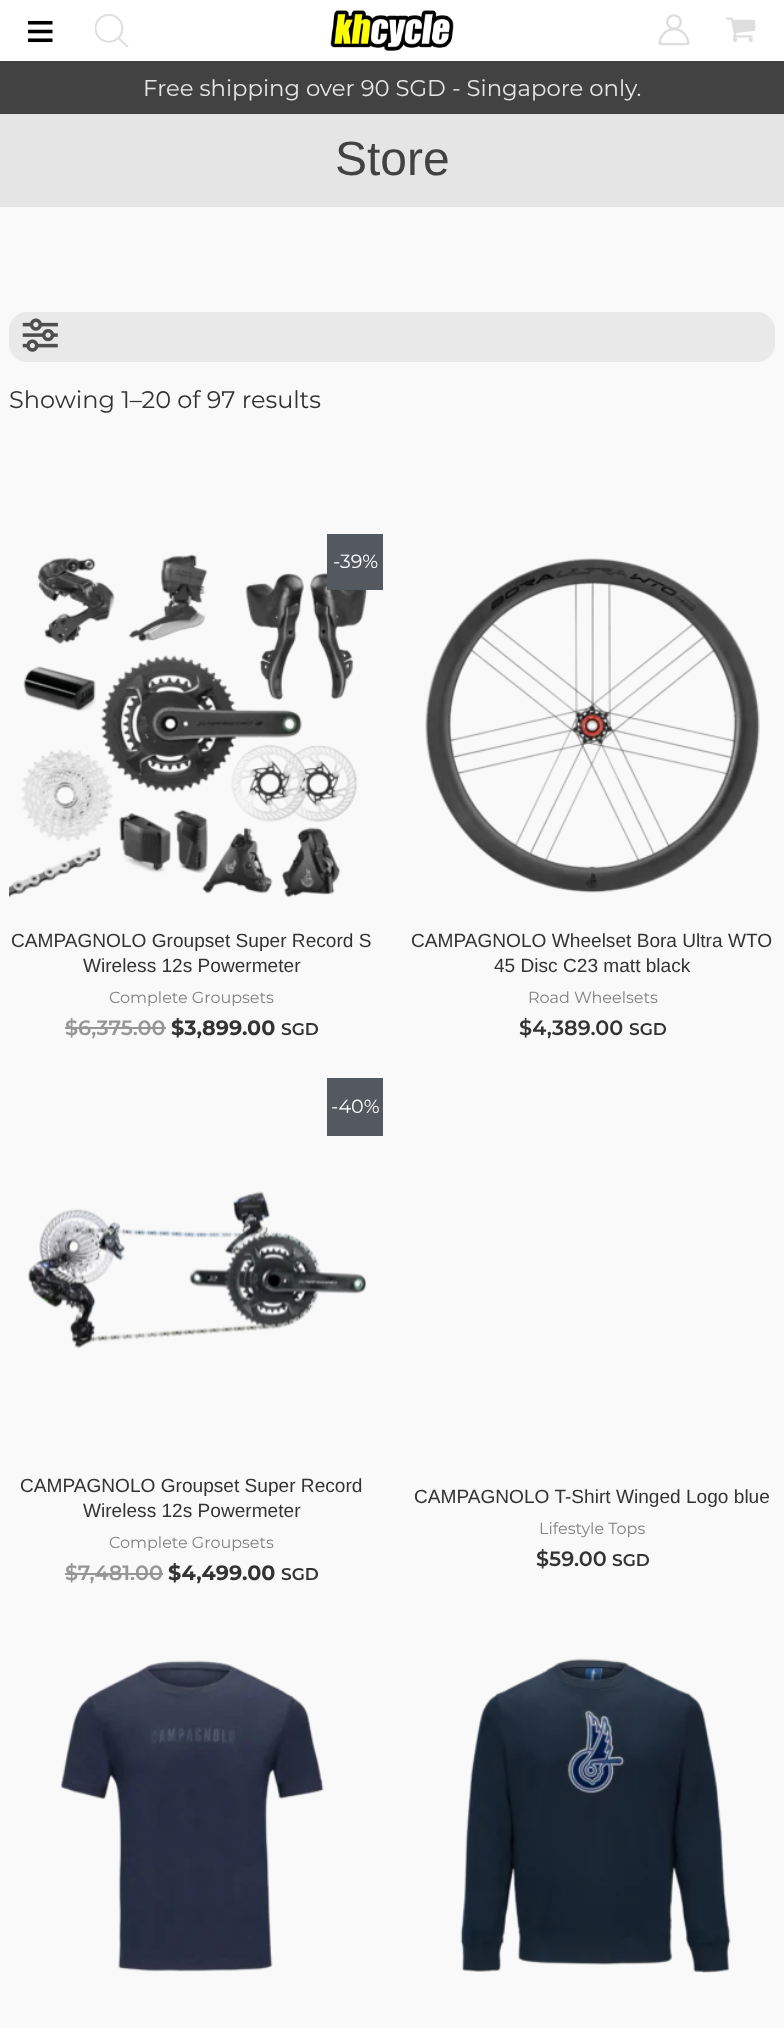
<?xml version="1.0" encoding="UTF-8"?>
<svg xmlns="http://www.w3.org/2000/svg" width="784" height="2028">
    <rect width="100%" height="100%" fill="#F9F9F9"/>
    <rect x="0" y="0" width="784" height="61" fill="#FFFFFF"/>
    <image x="28" y="20" width="25" height="23" href="img_01.png"/>
    <image x="95" y="14" width="34" height="33" href="img_02.png"/>
    <image x="330" y="10" width="124" height="41" href="img_03.png"/>
    <image x="658" y="14" width="32" height="32" href="img_04.png"/>
    <image x="726" y="17" width="30" height="25" href="img_05.png"/>
    <rect x="0" y="61" width="784" height="53" fill="#424242"/>
    <text x="143" y="96" font-family="Montserrat" font-size="22.75" fill="#E5E5E5">Free shipping over 90 SGD - Singapore only.</text>
    <rect x="0" y="114" width="784" height="93" fill="#E5E5E5"/>
    <text x="335" y="175" font-family="Liberation Sans" font-size="48" fill="#424242">Store</text>
    <rect x="9" y="312" width="766" height="50" rx="18" fill="#E9E9E9"/>
    <image x="22" y="318" width="36" height="34" href="img_06.png"/>
    <text x="9" y="408" font-family="Montserrat" font-size="24" fill="#333333">Showing 1–20 of 97 results</text>
    <image x="9" y="554" width="359" height="344" href="img_07.png"/>
    <rect x="327" y="534" width="56" height="56" fill="#54595F"/>
    <text x="333" y="568" font-family="Montserrat" font-size="19.1" fill="#FFFFFF">-39%</text>
    <text x="11" y="947" font-family="Liberation Sans" font-size="19.1" fill="#333333">CAMPAGNOLO Groupset Super Record S</text>
    <text x="83" y="972" font-family="Liberation Sans" font-size="19.1" fill="#333333">Wireless 12s Powermeter</text>
    <text x="109" y="1003" font-family="Montserrat" font-size="16" fill="#828282">Complete Groupsets</text>
    <text x="65" y="1035" font-family="Montserrat" font-size="20.75" font-weight="600" fill="#969696">$6,375.00</text>
    <rect x="65" y="1027" width="101" height="2" fill="#969696"/>
    <text x="171" y="1035" font-family="Montserrat" font-size="20.75" font-weight="700" fill="#333333">$3,899.00</text>
    <text x="281" y="1035" font-family="Montserrat" font-size="17" font-weight="600" fill="#333333">SGD</text>
    <image x="425" y="558" width="335" height="335" href="img_08.png"/>
    <text x="411" y="947" font-family="Liberation Sans" font-size="19.1" fill="#333333">CAMPAGNOLO Wheelset Bora Ultra WTO</text>
    <text x="494" y="972" font-family="Liberation Sans" font-size="19.1" fill="#333333">45 Disc C23 matt black</text>
    <text x="528" y="1003" font-family="Montserrat" font-size="16" fill="#828282">Road Wheelsets</text>
    <text x="519" y="1035" font-family="Montserrat" font-size="20.75" font-weight="600" fill="#333333">$4,389.00</text>
    <text x="629" y="1035" font-family="Montserrat" font-size="17" font-weight="600" fill="#333333">SGD</text>
    <rect x="327" y="1078" width="56" height="58" fill="#54595F"/>
    <text x="331" y="1113" font-family="Montserrat" font-size="19.1" fill="#FFFFFF">-40%</text>
    <image x="28" y="1191" width="339" height="158" href="img_09.png"/>
    <text x="20" y="1492" font-family="Liberation Sans" font-size="19.1" fill="#333333">CAMPAGNOLO Groupset Super Record</text>
    <text x="83" y="1517" font-family="Liberation Sans" font-size="19.1" fill="#333333">Wireless 12s Powermeter</text>
    <text x="109" y="1548" font-family="Montserrat" font-size="16" fill="#828282">Complete Groupsets</text>
    <text x="65" y="1580" font-family="Montserrat" font-size="20.75" font-weight="600" fill="#969696">$7,481.00</text>
    <rect x="65" y="1573" width="98" height="2" fill="#969696"/>
    <text x="168" y="1580" font-family="Montserrat" font-size="20.75" font-weight="700" fill="#333333">$4,499.00</text>
    <text x="281" y="1580" font-family="Montserrat" font-size="17" font-weight="600" fill="#333333">SGD</text>
    <text x="414" y="1503" font-family="Liberation Sans" font-size="19.1" fill="#333333">CAMPAGNOLO T-Shirt Winged Logo blue</text>
    <text x="539" y="1534" font-family="Montserrat" font-size="16" fill="#828282">Lifestyle Tops</text>
    <text x="536" y="1566" font-family="Montserrat" font-size="20.75" font-weight="600" fill="#333333">$59.00</text>
    <text x="612" y="1566" font-family="Montserrat" font-size="17" font-weight="600" fill="#333333">SGD</text>
    <image x="60" y="1660" width="264" height="312" href="img_10.png"/>
    <image x="460" y="1658" width="271" height="315" href="img_11.png"/>
</svg>
